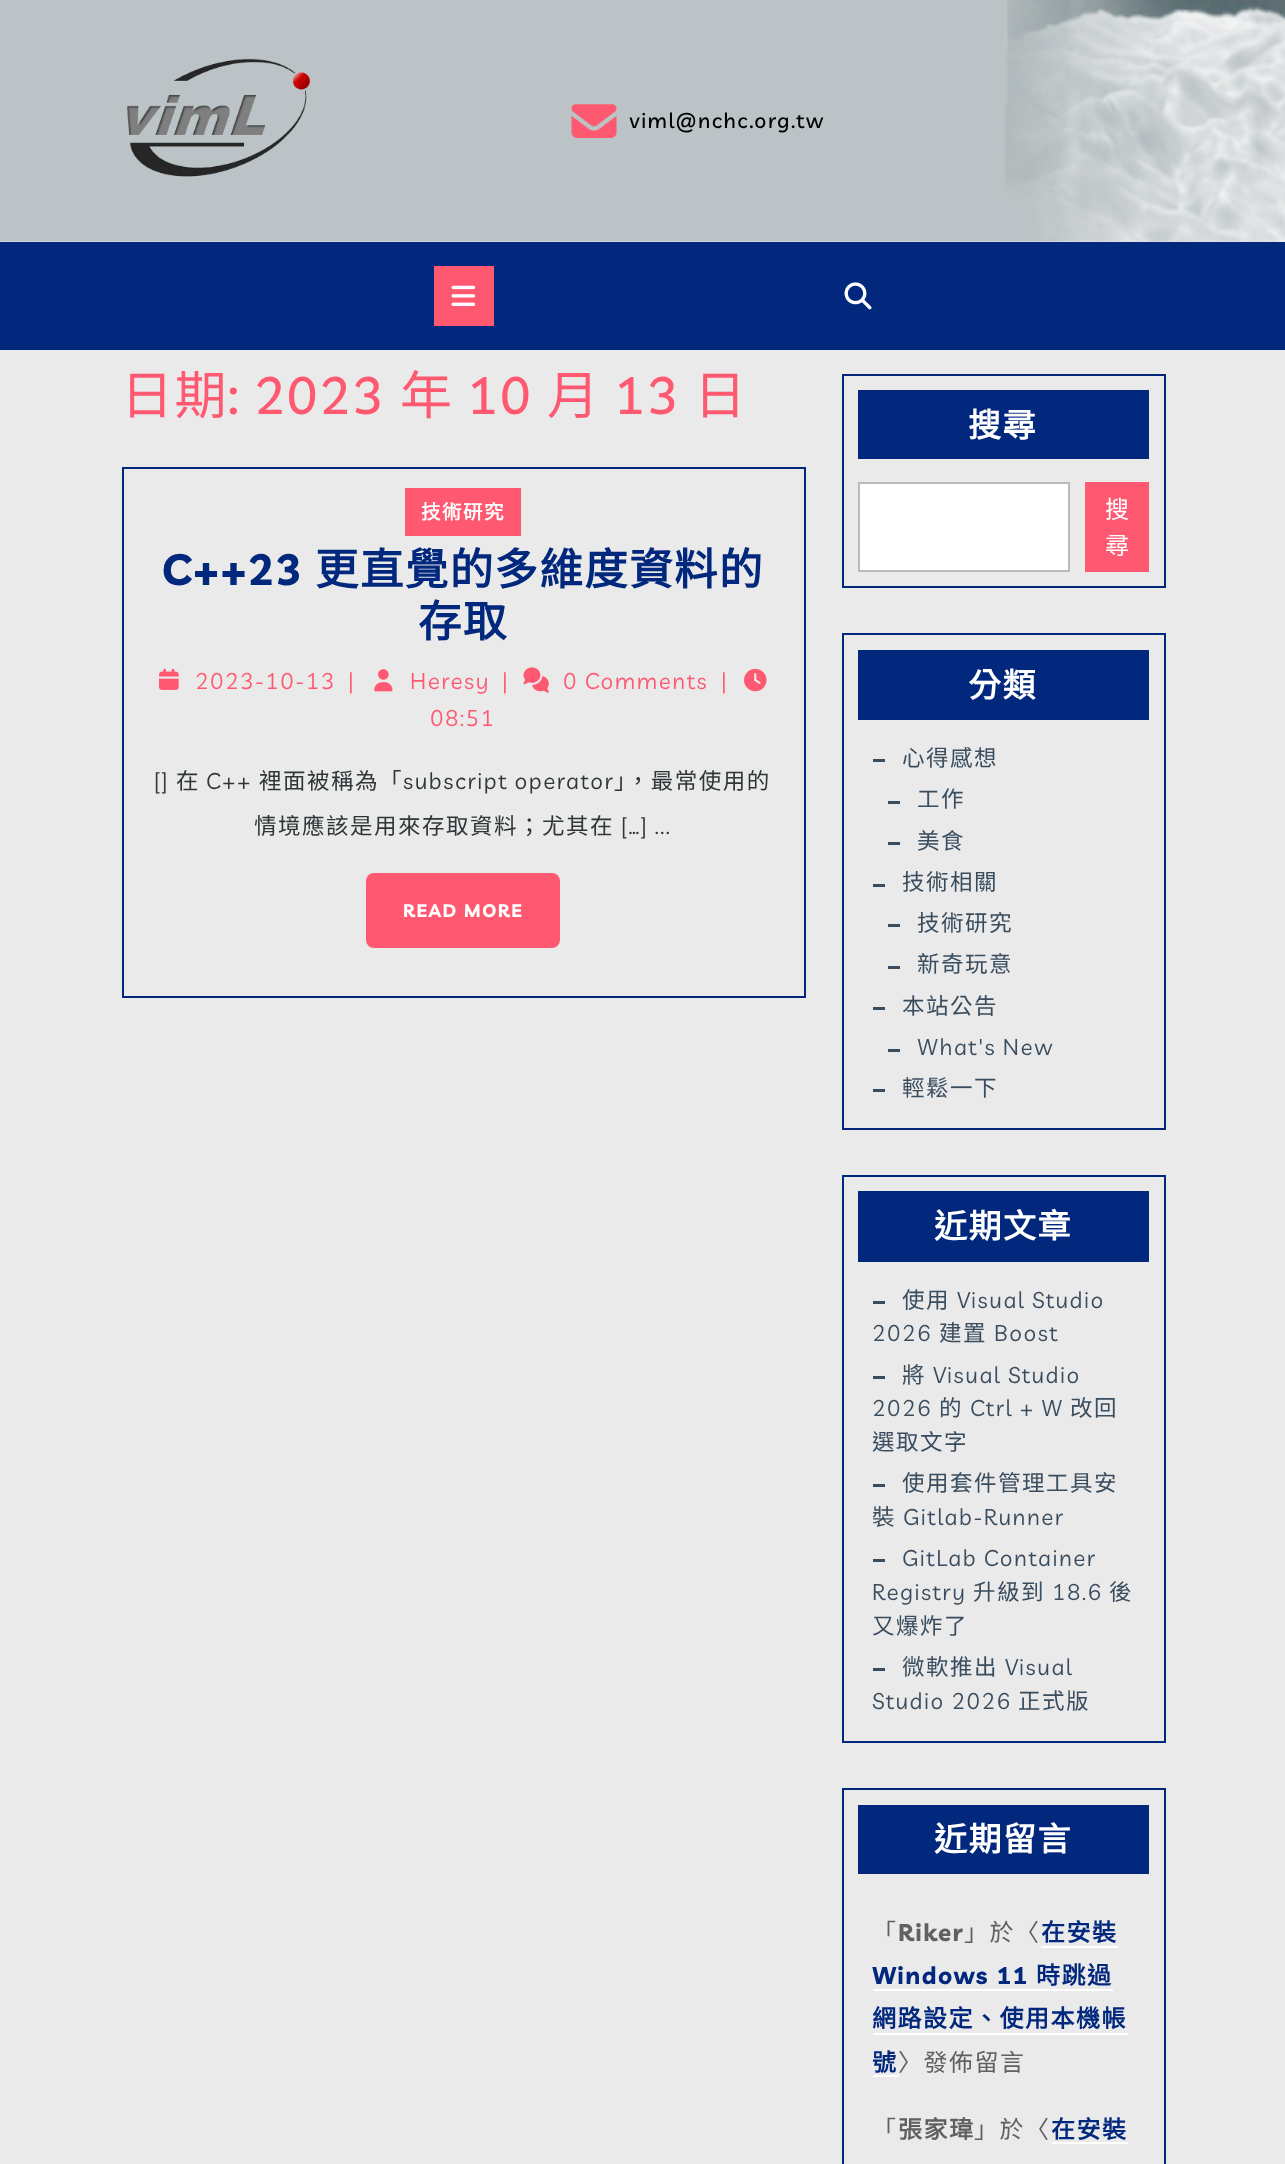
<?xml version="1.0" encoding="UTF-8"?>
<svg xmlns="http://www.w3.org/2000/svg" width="1285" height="2164">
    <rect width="100%" height="100%" fill="#EAEAEA"/>
    <image x="0" y="0" width="1285" height="242" href="img_01.png"/>
    <image x="127" y="58" width="183" height="119" href="img_02.png"/>
    <image x="571" y="104" width="46" height="34" href="img_03.png"/>
    <text x="629" y="128" font-family="Livvic" font-size="21" font-weight="500" letter-spacing="1.5" fill="#010101">viml@nchc.org.tw</text>
    <rect x="0" y="242" width="1285" height="108" fill="#01287D"/>
    <rect x="434" y="266" width="60" height="60" fill="#FE5970"/>
    <image x="451" y="285" width="25" height="21" href="img_04.png"/>
    <image x="844" y="282" width="28" height="28" href="img_05.png"/>
    <text x="121" y="414" font-family="Noto Sans CJK TC" font-size="52" letter-spacing="1.5" fill="#FE5970">日期</text>
    <text x="228" y="414" font-family="Livvic" font-size="52" font-weight="500" letter-spacing="1.5" fill="#FE5970">: 2023</text>
    <text x="400" y="414" font-family="Noto Sans CJK TC" font-size="52" letter-spacing="1.5" fill="#FE5970">年</text>
    <text x="467" y="414" font-family="Livvic" font-size="52" font-weight="500" letter-spacing="1.5" fill="#FE5970">10</text>
    <text x="547" y="414" font-family="Noto Sans CJK TC" font-size="52" letter-spacing="1.5" fill="#FE5970">月</text>
    <text x="614" y="414" font-family="Livvic" font-size="52" font-weight="500" letter-spacing="1.5" fill="#FE5970">13</text>
    <text x="694" y="414" font-family="Noto Sans CJK TC" font-size="52" letter-spacing="1.5" fill="#FE5970">日</text>
    <rect x="123" y="468" width="682" height="529" fill="none" stroke="#01287D" stroke-width="2"/>
    <rect x="405" y="488" width="116" height="48" fill="#FE5970"/>
    <text x="421" y="519" font-family="Noto Sans CJK TC" font-size="19.5" font-weight="700" letter-spacing="1.5" fill="#FFFFFF">技術研究</text>
    <text x="162" y="585" font-family="Livvic" font-size="43.4" font-weight="700" letter-spacing="1.5" fill="#01287D">C++23</text>
    <text x="315" y="585" font-family="Noto Sans CJK TC" font-size="43.4" font-weight="700" letter-spacing="1.5" fill="#01287D">更直覺的多維度資料的</text>
    <text x="418" y="637" font-family="Noto Sans CJK TC" font-size="43.4" font-weight="700" letter-spacing="1.5" fill="#01287D">存取</text>
    <image x="159" y="668" width="20" height="22" href="img_06.png"/>
    <text x="195" y="689" font-family="Livvic" font-size="22.5" letter-spacing="1.5" fill="#FE5970">2023-10-13</text>
    <text x="348" y="689" font-family="Livvic" font-size="22.5" letter-spacing="1.5" fill="#FE5970">|</text>
    <image x="374" y="669" width="19" height="23" href="img_07.png"/>
    <text x="410" y="689" font-family="Livvic" font-size="22.5" letter-spacing="1.5" fill="#FE5970">Heresy</text>
    <text x="502" y="689" font-family="Livvic" font-size="22.5" letter-spacing="1.5" fill="#FE5970">|</text>
    <image x="523" y="667" width="26" height="26" href="img_08.png"/>
    <text x="563" y="689" font-family="Livvic" font-size="22.5" letter-spacing="1.5" fill="#FE5970">0 Comments</text>
    <text x="721" y="689" font-family="Livvic" font-size="22.5" letter-spacing="1.5" fill="#FE5970">|</text>
    <image x="744" y="668" width="23" height="24" href="img_09.png"/>
    <text x="430" y="726" font-family="Livvic" font-size="22.5" letter-spacing="1.5" fill="#FE5970">08:51</text>
    <text x="154" y="789" font-family="Livvic" font-size="22.5" letter-spacing="1.5" fill="#2F3637">[]</text>
    <text x="176" y="789" font-family="Noto Sans CJK TC" font-size="22.5" letter-spacing="1.5" fill="#2F3637">在</text>
    <text x="206" y="789" font-family="Livvic" font-size="22.5" letter-spacing="1.5" fill="#2F3637">C++</text>
    <text x="259" y="789" font-family="Noto Sans CJK TC" font-size="22.5" letter-spacing="1.5" fill="#2F3637">裡面被稱為「</text>
    <text x="403" y="789" font-family="Livvic" font-size="22.5" letter-spacing="1.5" fill="#2F3637">subscript operator</text>
    <text x="614" y="789" font-family="Noto Sans CJK TC" font-size="22.5" letter-spacing="1.5" fill="#2F3637">」，最常使用的</text>
    <text x="254" y="834" font-family="Noto Sans CJK TC" font-size="22.5" letter-spacing="1.5" fill="#2F3637">情境應該是用來存取資料；尤其在</text>
    <text x="621" y="834" font-family="Livvic" font-size="22.5" letter-spacing="1.5" fill="#2F3637">[…] ...</text>
    <rect x="366" y="873" width="194" height="75" rx="8" fill="#FE5970"/>
    <text x="403" y="917" font-family="Livvic" font-size="18" font-weight="700" letter-spacing="1.5" fill="#FFFFFF">READ MORE</text>
    <rect x="843" y="375" width="322" height="212" fill="none" stroke="#01287D" stroke-width="2"/>
    <rect x="858" y="390" width="291" height="69" fill="#01287D"/>
    <text x="968" y="437" font-family="Noto Sans CJK TC" font-size="33" font-weight="700" letter-spacing="1.5" fill="#FFFFFF">搜尋</text>
    <rect x="859" y="483" width="210" height="88" fill="#FFFFFF" stroke="#BBBBBB" stroke-width="2"/>
    <rect x="1085" y="482" width="64" height="90" fill="#FE5970"/>
    <text font-family="Noto Sans CJK TC" font-size="24" fill="#FFFFFF">
        <tspan x="1105" y="518">搜</tspan>
        <tspan x="1105" y="554">尋</tspan>
    </text>
    <rect x="843" y="634" width="322" height="495" fill="none" stroke="#01287D" stroke-width="2"/>
    <rect x="858" y="650" width="291" height="70" fill="#01287D"/>
    <text x="968" y="697" font-family="Noto Sans CJK TC" font-size="33" font-weight="700" letter-spacing="1.5" fill="#FFFFFF">分類</text>
    <rect x="873" y="759" width="12" height="3" fill="#3A4D5E"/>
    <text x="902" y="766" font-family="Noto Sans CJK TC" font-size="22.5" letter-spacing="1.5" fill="#3A4D5E">心得感想</text>
    <rect x="888" y="801" width="12" height="3" fill="#3A4D5E"/>
    <text x="917" y="807" font-family="Noto Sans CJK TC" font-size="22.5" letter-spacing="1.5" fill="#3A4D5E">工作</text>
    <rect x="888" y="842" width="12" height="3" fill="#3A4D5E"/>
    <text x="917" y="849" font-family="Noto Sans CJK TC" font-size="22.5" letter-spacing="1.5" fill="#3A4D5E">美食</text>
    <rect x="873" y="884" width="12" height="3" fill="#3A4D5E"/>
    <text x="902" y="890" font-family="Noto Sans CJK TC" font-size="22.5" letter-spacing="1.5" fill="#3A4D5E">技術相關</text>
    <rect x="888" y="924" width="12" height="3" fill="#3A4D5E"/>
    <text x="917" y="931" font-family="Noto Sans CJK TC" font-size="22.5" letter-spacing="1.5" fill="#3A4D5E">技術研究</text>
    <rect x="888" y="966" width="12" height="3" fill="#3A4D5E"/>
    <text x="917" y="972" font-family="Noto Sans CJK TC" font-size="22.5" letter-spacing="1.5" fill="#3A4D5E">新奇玩意</text>
    <rect x="873" y="1007" width="12" height="3" fill="#3A4D5E"/>
    <text x="902" y="1014" font-family="Noto Sans CJK TC" font-size="22.5" letter-spacing="1.5" fill="#3A4D5E">本站公告</text>
    <rect x="888" y="1049" width="12" height="3" fill="#3A4D5E"/>
    <text x="917" y="1055" font-family="Livvic" font-size="22.5" letter-spacing="1.5" fill="#3A4D5E">What's New</text>
    <rect x="873" y="1089" width="12" height="3" fill="#3A4D5E"/>
    <text x="902" y="1096" font-family="Noto Sans CJK TC" font-size="22.5" letter-spacing="1.5" fill="#3A4D5E">輕鬆一下</text>
    <rect x="843" y="1176" width="322" height="566" fill="none" stroke="#01287D" stroke-width="2"/>
    <rect x="858" y="1191" width="291" height="71" fill="#01287D"/>
    <text x="934" y="1238" font-family="Noto Sans CJK TC" font-size="33" font-weight="700" letter-spacing="1.5" fill="#FFFFFF">近期文章</text>
    <rect x="873" y="1301" width="12" height="3" fill="#3A4D5E"/>
    <text x="902" y="1308" font-family="Noto Sans CJK TC" font-size="22.5" letter-spacing="1.5" fill="#3A4D5E">使用</text>
    <text x="957" y="1308" font-family="Livvic" font-size="22.5" letter-spacing="1.5" fill="#3A4D5E">Visual Studio</text>
    <text x="872" y="1341" font-family="Livvic" font-size="22.5" letter-spacing="1.5" fill="#3A4D5E">2026</text>
    <text x="939" y="1341" font-family="Noto Sans CJK TC" font-size="22.5" letter-spacing="1.5" fill="#3A4D5E">建置</text>
    <text x="994" y="1341" font-family="Livvic" font-size="22.5" letter-spacing="1.5" fill="#3A4D5E">Boost</text>
    <rect x="873" y="1376" width="12" height="3" fill="#3A4D5E"/>
    <text x="902" y="1383" font-family="Noto Sans CJK TC" font-size="22.5" letter-spacing="1.5" fill="#3A4D5E">將</text>
    <text x="933" y="1383" font-family="Livvic" font-size="22.5" letter-spacing="1.5" fill="#3A4D5E">Visual Studio</text>
    <text x="872" y="1416" font-family="Livvic" font-size="22.5" letter-spacing="1.5" fill="#3A4D5E">2026</text>
    <text x="939" y="1416" font-family="Noto Sans CJK TC" font-size="22.5" letter-spacing="1.5" fill="#3A4D5E">的</text>
    <text x="970" y="1416" font-family="Livvic" font-size="22.5" letter-spacing="1.5" fill="#3A4D5E">Ctrl + W</text>
    <text x="1070" y="1416" font-family="Noto Sans CJK TC" font-size="22.5" letter-spacing="1.5" fill="#3A4D5E">改回</text>
    <text x="872" y="1450" font-family="Noto Sans CJK TC" font-size="22.5" letter-spacing="1.5" fill="#3A4D5E">選取文字</text>
    <rect x="873" y="1484" width="12" height="3" fill="#3A4D5E"/>
    <text x="902" y="1491" font-family="Noto Sans CJK TC" font-size="22.5" letter-spacing="1.5" fill="#3A4D5E">使用套件管理工具安</text>
    <text x="872" y="1525" font-family="Noto Sans CJK TC" font-size="22.5" letter-spacing="1.5" fill="#3A4D5E">裝</text>
    <text x="903" y="1525" font-family="Livvic" font-size="22.5" letter-spacing="1.5" fill="#3A4D5E">Gitlab-Runner</text>
    <rect x="873" y="1559" width="12" height="3" fill="#3A4D5E"/>
    <text x="902" y="1566" font-family="Livvic" font-size="22.5" letter-spacing="1.5" fill="#3A4D5E">GitLab Container</text>
    <text x="872" y="1600" font-family="Livvic" font-size="22.5" letter-spacing="1.5" fill="#3A4D5E">Registry</text>
    <text x="973" y="1600" font-family="Noto Sans CJK TC" font-size="22.5" letter-spacing="1.5" fill="#3A4D5E">升級到</text>
    <text x="1052" y="1600" font-family="Livvic" font-size="22.5" letter-spacing="1.5" fill="#3A4D5E">18.6</text>
    <text x="1109" y="1600" font-family="Noto Sans CJK TC" font-size="22.5" letter-spacing="1.5" fill="#3A4D5E">後</text>
    <text x="872" y="1634" font-family="Noto Sans CJK TC" font-size="22.5" letter-spacing="1.5" fill="#3A4D5E">又爆炸了</text>
    <rect x="873" y="1668" width="12" height="3" fill="#3A4D5E"/>
    <text x="902" y="1675" font-family="Noto Sans CJK TC" font-size="22.5" letter-spacing="1.5" fill="#3A4D5E">微軟推出</text>
    <text x="1005" y="1675" font-family="Livvic" font-size="22.5" letter-spacing="1.5" fill="#3A4D5E">Visual</text>
    <text x="872" y="1709" font-family="Livvic" font-size="22.5" letter-spacing="1.5" fill="#3A4D5E">Studio 2026</text>
    <text x="1018" y="1709" font-family="Noto Sans CJK TC" font-size="22.5" letter-spacing="1.5" fill="#3A4D5E">正式版</text>
    <rect x="843" y="1789" width="322" height="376" fill="none" stroke="#01287D" stroke-width="2"/>
    <rect x="858" y="1805" width="291" height="69" fill="#01287D"/>
    <text x="934" y="1851" font-family="Noto Sans CJK TC" font-size="33" font-weight="700" letter-spacing="1.5" fill="#FFFFFF">近期留言</text>
    <text x="872" y="1941" font-family="Noto Sans CJK TC" font-size="24" letter-spacing="1.5" fill="#606060">「</text>
    <text x="898" y="1941" font-family="Livvic" font-size="24" font-weight="700" letter-spacing="1.5" fill="#606060">Riker</text>
    <text x="964" y="1941" font-family="Noto Sans CJK TC" font-size="24" letter-spacing="1.5" fill="#606060">」於〈</text>
    <text x="1041" y="1941" font-family="Noto Sans CJK TC" font-size="24" font-weight="700" letter-spacing="1.5" fill="#01287D">在安裝</text>
    <rect x="1041" y="1946" width="77" height="2" fill="#FFFFFF"/>
    <text x="872" y="1984" font-family="Livvic" font-size="24" font-weight="700" letter-spacing="1.5" fill="#01287D">Windows 11</text>
    <rect x="873" y="1989" width="240" height="2" fill="#FFFFFF"/>
    <text x="1036" y="1984" font-family="Noto Sans CJK TC" font-size="24" font-weight="700" letter-spacing="1.5" fill="#01287D">時跳過</text>
    <text x="872" y="2027" font-family="Noto Sans CJK TC" font-size="24" font-weight="700" letter-spacing="1.5" fill="#01287D">網路設定、使用本機帳</text>
    <rect x="873" y="2033" width="255" height="2" fill="#FFFFFF"/>
    <text x="872" y="2071" font-family="Noto Sans CJK TC" font-size="24" font-weight="700" letter-spacing="1.5" fill="#01287D">號</text>
    <rect x="873" y="2075" width="26" height="2" fill="#FFFFFF"/>
    <text x="898" y="2071" font-family="Noto Sans CJK TC" font-size="24" letter-spacing="1.5" fill="#606060">〉發佈留言</text>
    <text x="872" y="2138" font-family="Noto Sans CJK TC" font-size="24" letter-spacing="1.5" fill="#606060">「</text>
    <text x="898" y="2138" font-family="Noto Sans CJK TC" font-size="24" font-weight="700" letter-spacing="1.5" fill="#606060">張家瑋</text>
    <text x="974" y="2138" font-family="Noto Sans CJK TC" font-size="24" letter-spacing="1.5" fill="#606060">」於〈</text>
    <text x="1051" y="2138" font-family="Noto Sans CJK TC" font-size="24" font-weight="700" letter-spacing="1.5" fill="#01287D">在安裝</text>
    <rect x="1052" y="2142" width="76" height="2" fill="#FFFFFF"/>
</svg>
